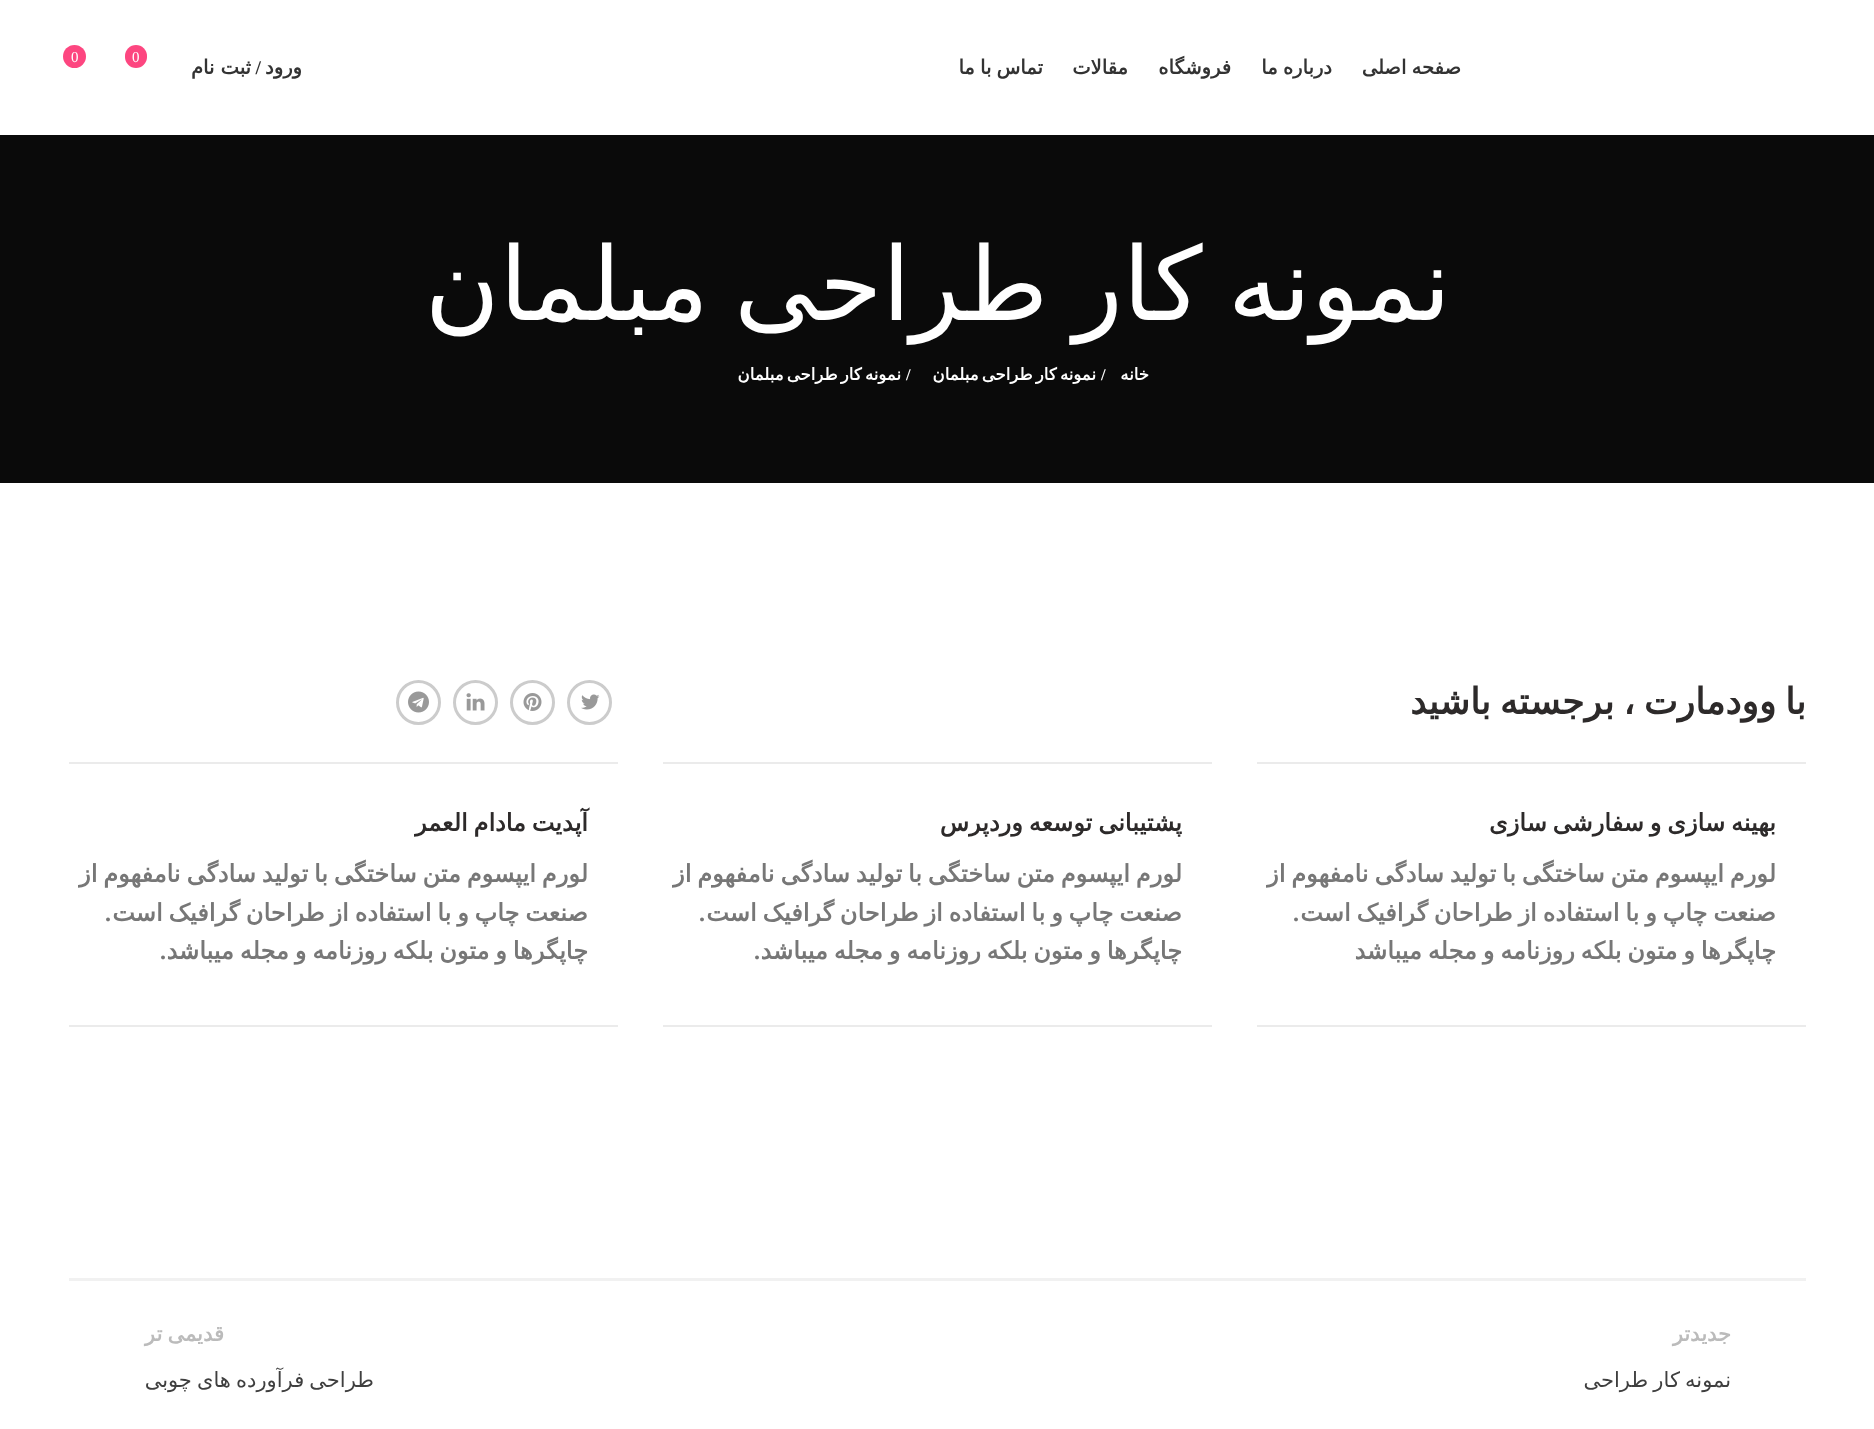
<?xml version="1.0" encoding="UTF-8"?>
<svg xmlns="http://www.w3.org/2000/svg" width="1874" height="1429">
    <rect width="100%" height="100%" fill="#FFFFFF"/>
    <text x="1461" y="74" word-spacing="-1" font-family="DejaVu Sans" font-size="19.5" font-weight="700" direction="rtl" fill="#333333">صفحه اصلی</text>
    <text x="1332" y="74" word-spacing="-1" font-family="DejaVu Sans" font-size="19.5" font-weight="700" direction="rtl" fill="#333333">درباره ما</text>
    <text x="1231" y="74" font-family="DejaVu Sans" font-size="19.5" font-weight="700" direction="rtl" fill="#333333">فروشگاه</text>
    <text x="1128" y="74" font-family="DejaVu Sans" font-size="19.5" font-weight="700" direction="rtl" fill="#333333">مقالات</text>
    <text x="1043" y="74" word-spacing="-1" font-family="DejaVu Sans" font-size="19.5" font-weight="700" direction="rtl" fill="#333333">تماس با ما</text>
    <rect x="125" y="45" width="22" height="23" rx="11" fill="#FD4680"/>
    <text x="132" y="62" font-family="Liberation Serif" font-size="15" fill="#FFFFFF">0</text>
    <circle cx="74.5" cy="56.5" r="11.5" fill="#FD4680"/>
    <text x="71" y="62" font-family="Liberation Serif" font-size="15" fill="#FFFFFF">0</text>
    <text x="302" y="74" font-family="DejaVu Sans" font-size="19.5" font-weight="700" direction="rtl" fill="#333333">ورود</text>
    <text x="261" y="74" font-family="Liberation Serif" font-size="19.5" font-weight="700" direction="rtl" fill="#333333">/</text>
    <text x="251" y="74" font-family="DejaVu Sans" font-size="19.5" font-weight="700" direction="rtl" fill="#333333">ثبت نام</text>
    <rect x="0" y="135" width="1874" height="348" fill="#0A0A0A"/>
    <text x="1451" y="320" word-spacing="-7" font-family="DejaVu Sans" font-size="102" direction="rtl" fill="#FFFFFF">نمونه کار طراحی مبلمان</text>
    <text x="1149" y="380" font-family="DejaVu Sans" font-size="16.5" font-weight="700" letter-spacing="0.45" direction="rtl" fill="#FFFFFF">خانه</text>
    <text x="1101" y="380" font-family="Liberation Serif" font-size="16.5" font-weight="700" letter-spacing="0.45" fill="#FFFFFF">/</text>
    <text x="1096" y="380" word-spacing="-2" font-family="DejaVu Sans" font-size="16.5" font-weight="700" letter-spacing="0.45" direction="rtl" fill="#FFFFFF">نمونه کار طراحی مبلمان</text>
    <text x="906" y="380" font-family="Liberation Serif" font-size="16.5" font-weight="700" letter-spacing="0.45" fill="#FFFFFF">/</text>
    <text x="901" y="380" word-spacing="-2" font-family="DejaVu Sans" font-size="16.5" font-weight="700" letter-spacing="0.45" direction="rtl" fill="#FFFFFF">نمونه کار طراحی مبلمان</text>
    <text x="1806" y="714" word-spacing="-2.5" font-family="DejaVu Sans" font-size="36" font-weight="700" direction="rtl" fill="#2D2A2A">با وودمارت ، برجسته باشید</text>
    <circle cx="589.5" cy="702.5" r="21" fill="none" stroke="#CCCCCC" stroke-width="3"/>
    <image x="581" y="694" width="19" height="16" href="img_01.png"/>
    <circle cx="532.5" cy="702.5" r="21" fill="none" stroke="#CCCCCC" stroke-width="3"/>
    <image x="523" y="693" width="19" height="18" href="img_02.png"/>
    <circle cx="475.5" cy="702.5" r="21" fill="none" stroke="#CCCCCC" stroke-width="3"/>
    <image x="466" y="693" width="19" height="18" href="img_03.png"/>
    <circle cx="418.5" cy="702.5" r="21" fill="none" stroke="#CCCCCC" stroke-width="3"/>
    <image x="408" y="691" width="21" height="22" href="img_04.png"/>
    <rect x="1257" y="762" width="549" height="2" fill="#EBEBEB"/>
    <text x="1776" y="831" word-spacing="-1.75" font-family="DejaVu Sans" font-size="24" font-weight="700" direction="rtl" fill="#2D2A2A">بهینه سازی و سفارشی سازی</text>
    <text font-family="DejaVu Sans" font-size="24" font-weight="700" direction="rtl" fill="#777777">
        <tspan x="1776" y="882" word-spacing="-1.75">لورم ایپسوم متن ساختگی با تولید سادگی نامفهوم از</tspan>
        <tspan x="1776" y="921" word-spacing="-1.75">صنعت چاپ و با استفاده از طراحان گرافیک است</tspan>
    </text>
    <text x="1299" y="921" font-family="Liberation Serif" font-size="24" font-weight="700" direction="rtl" fill="#777777">.</text>
    <text x="1776" y="959" word-spacing="-1.75" font-family="DejaVu Sans" font-size="24" font-weight="700" direction="rtl" fill="#777777">چاپگرها و متون بلکه روزنامه و مجله میباشد</text>
    <rect x="1257" y="1025" width="549" height="2" fill="#EBEBEB"/>
    <rect x="663" y="762" width="549" height="2" fill="#EBEBEB"/>
    <text x="1182" y="831" word-spacing="-1.75" font-family="DejaVu Sans" font-size="24" font-weight="700" direction="rtl" fill="#2D2A2A">پشتیبانی توسعه وردپرس</text>
    <text font-family="DejaVu Sans" font-size="24" font-weight="700" direction="rtl" fill="#777777">
        <tspan x="1182" y="882" word-spacing="-1.75">لورم ایپسوم متن ساختگی با تولید سادگی نامفهوم از</tspan>
        <tspan x="1182" y="921" word-spacing="-1.75">صنعت چاپ و با استفاده از طراحان گرافیک است</tspan>
    </text>
    <text x="705" y="921" font-family="Liberation Serif" font-size="24" font-weight="700" direction="rtl" fill="#777777">.</text>
    <text x="1182" y="959" word-spacing="-1.75" font-family="DejaVu Sans" font-size="24" font-weight="700" direction="rtl" fill="#777777">چاپگرها و متون بلکه روزنامه و مجله میباشد</text>
    <text x="760" y="959" font-family="Liberation Serif" font-size="24" font-weight="700" direction="rtl" fill="#777777">.</text>
    <rect x="663" y="1025" width="549" height="2" fill="#EBEBEB"/>
    <rect x="69" y="762" width="549" height="2" fill="#EBEBEB"/>
    <text x="588" y="831" word-spacing="-1.75" font-family="DejaVu Sans" font-size="24" font-weight="700" direction="rtl" fill="#2D2A2A">آپدیت مادام العمر</text>
    <text font-family="DejaVu Sans" font-size="24" font-weight="700" direction="rtl" fill="#777777">
        <tspan x="588" y="882" word-spacing="-1.75">لورم ایپسوم متن ساختگی با تولید سادگی نامفهوم از</tspan>
        <tspan x="588" y="921" word-spacing="-1.75">صنعت چاپ و با استفاده از طراحان گرافیک است</tspan>
    </text>
    <text x="111" y="921" font-family="Liberation Serif" font-size="24" font-weight="700" direction="rtl" fill="#777777">.</text>
    <text x="588" y="959" word-spacing="-1.75" font-family="DejaVu Sans" font-size="24" font-weight="700" direction="rtl" fill="#777777">چاپگرها و متون بلکه روزنامه و مجله میباشد</text>
    <text x="166" y="959" font-family="Liberation Serif" font-size="24" font-weight="700" direction="rtl" fill="#777777">.</text>
    <rect x="69" y="1025" width="549" height="2" fill="#EBEBEB"/>
    <rect x="69" y="1278" width="1737" height="3" fill="#F1F1F1"/>
    <text x="1731" y="1341" font-family="DejaVu Sans" font-size="21" font-weight="700" direction="rtl" fill="#BBBBBB">جدیدتر</text>
    <text x="1731" y="1387" word-spacing="-1.5" font-family="DejaVu Sans" font-size="21" direction="rtl" fill="#3F3F3F">نمونه کار طراحی</text>
    <text x="224" y="1341" word-spacing="-1.5" font-family="DejaVu Sans" font-size="21" font-weight="700" direction="rtl" fill="#BBBBBB">قدیمی تر</text>
    <text x="374" y="1387" word-spacing="-1.5" font-family="DejaVu Sans" font-size="21" direction="rtl" fill="#3F3F3F">طراحی فرآورده های چوبی</text>
</svg>
